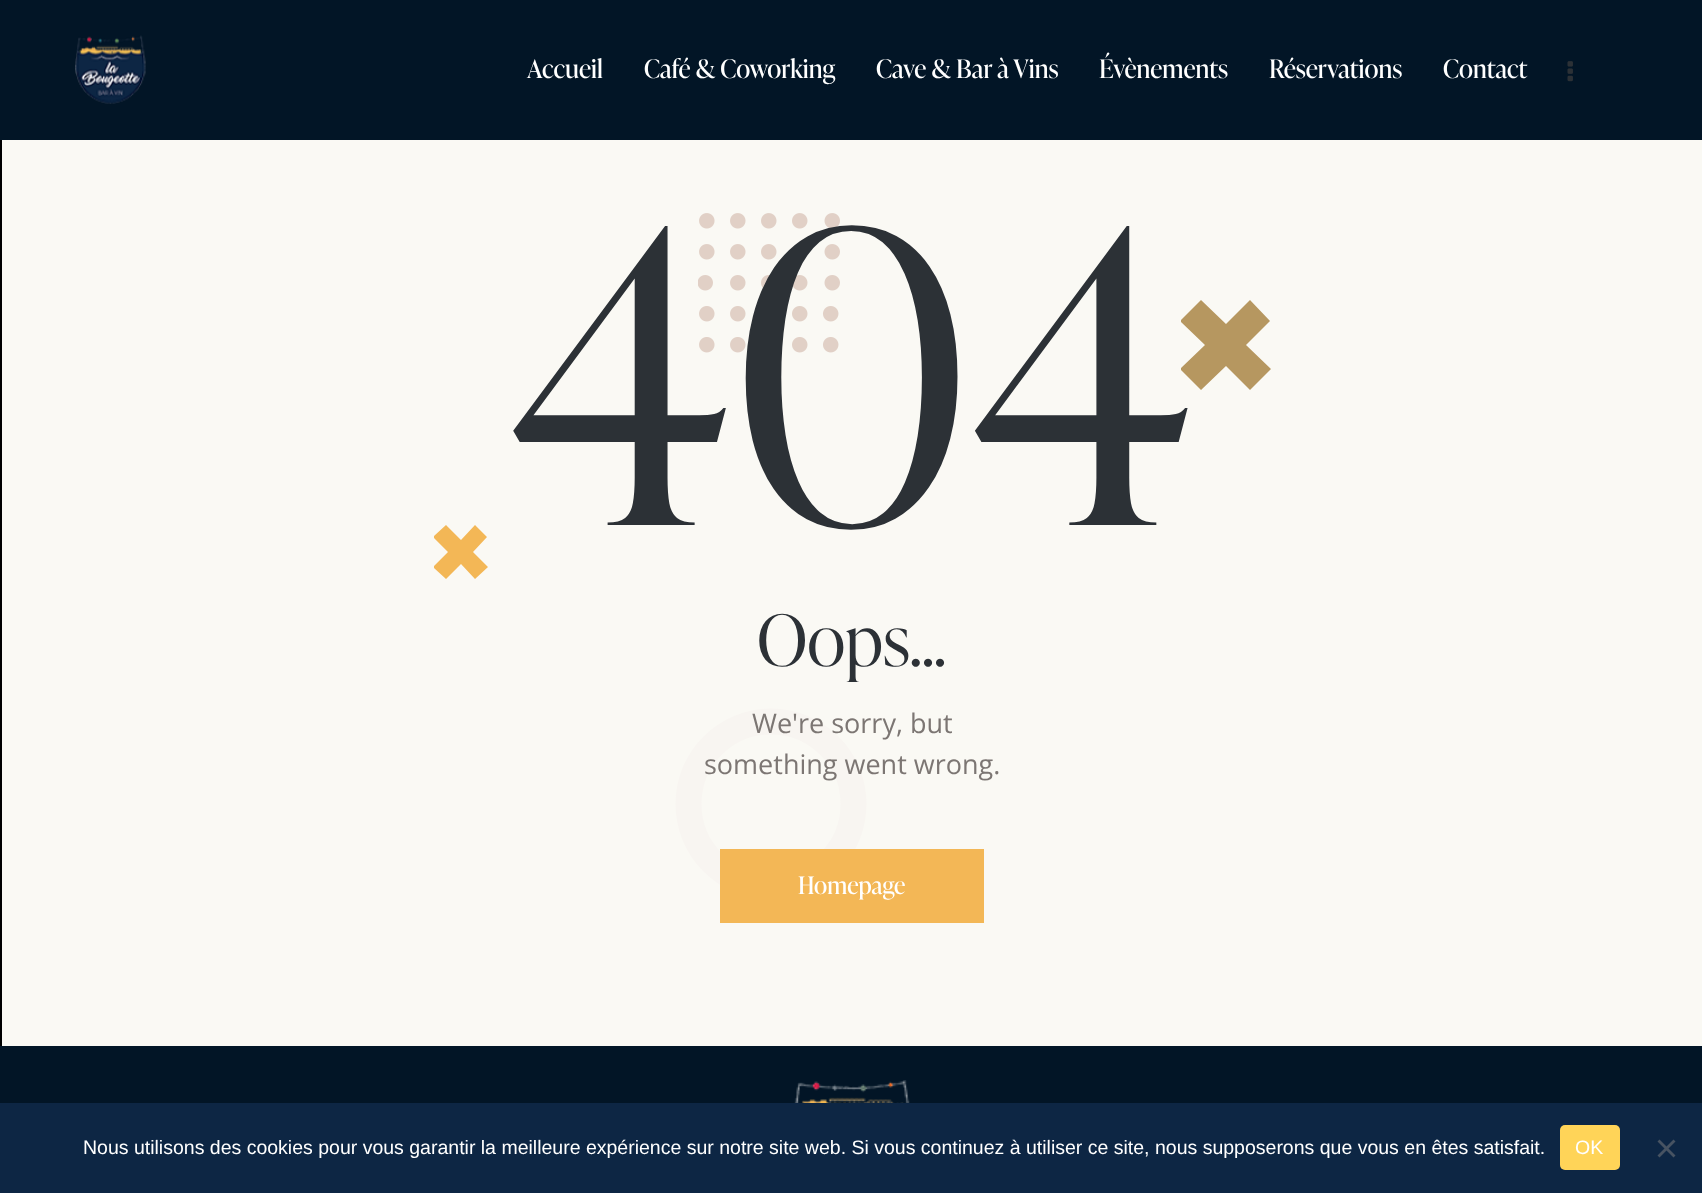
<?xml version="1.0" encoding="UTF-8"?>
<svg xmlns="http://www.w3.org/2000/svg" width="1702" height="1193">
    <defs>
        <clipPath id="clip1"><rect x="1181" y="300" width="90" height="90"/></clipPath>
        <clipPath id="clip2"><rect x="434" y="525" width="54" height="54"/></clipPath>
    </defs>
    <rect width="100%" height="100%" fill="#FAF9F4"/>
    <rect x="0" y="0" width="1702" height="140" fill="#021526"/>
    <image x="75" y="35" width="71" height="69" href="img_01.png"/>
    <text x="527" y="78" font-family="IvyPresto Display" font-size="25.5" fill="#FFFFFF">Accueil</text>
    <text x="644" y="78" font-family="IvyPresto Display" font-size="25.5" fill="#FFFFFF">Café &amp; Coworking</text>
    <text x="876" y="78" font-family="IvyPresto Display" font-size="25.5" fill="#FFFFFF">Cave &amp; Bar à Vins</text>
    <text x="1099" y="78" font-family="IvyPresto Display" font-size="25.5" fill="#FFFFFF">Évènements</text>
    <text x="1269" y="78" font-family="IvyPresto Display" font-size="25.5" fill="#FFFFFF">Réservations</text>
    <text x="1443" y="78" font-family="IvyPresto Display" font-size="25.5" fill="#FFFFFF">Contact</text>
    <image x="1567" y="61" width="6" height="21" href="img_02.png"/>
    <rect x="0" y="140" width="2" height="906" fill="#000000"/>
    <image x="698" y="213" width="142" height="140" href="img_03.png"/>
    <g clip-path="url(#clip1)">
        <path d="M 1180 369 L 1205 345 L 1180 321 L 1201 300 L 1226 324 L 1250 300 L 1270 321 L 1246 345 L 1271 369 L 1250 390 L 1226 366 L 1201 390 Z" fill="#B69760"/>
    </g>
    <g clip-path="url(#clip2)">
        <path d="M 433 567 L 448 552 L 433 537 L 446 525 L 461 540 L 475 525 L 487 537 L 473 552 L 488 567 L 475 579 L 461 564 L 446 579 Z" fill="#F3B756"/>
    </g>
    <circle cx="771" cy="804" r="82.5" fill="none" stroke="#F8F5F1" stroke-width="26"/>
    <text x="512" y="525" font-family="IvyPresto Display" font-size="405" font-weight="300" fill="#2C3136">404</text>
    <text x="757" y="666" font-family="IvyPresto Display" font-size="70.5" font-weight="300" fill="#2C3136">Oops...</text>
    <text x="752" y="733" font-family="Open Sans" font-size="27" fill="#7C7673">We're sorry, but</text>
    <text x="704" y="774" font-family="Open Sans" font-size="27" fill="#7C7673">something went wrong.</text>
    <rect x="720" y="849" width="264" height="74" fill="#F3B756"/>
    <text x="798" y="894" font-family="IvyPresto Display" font-size="24" fill="#FFFFFF">Homepage</text>
    <rect x="0" y="1046" width="1702" height="57" fill="#021526"/>
    <image x="794" y="1080" width="116" height="23" href="img_04.png"/>
    <rect x="0" y="1103" width="1702" height="90" fill="#0D2644"/>
    <text x="83" y="1154" font-family="Liberation Sans" font-size="19.5" fill="#FFFFFF">Nous utilisons des cookies pour vous garantir la meilleure expérience sur notre site web. Si vous continuez à utiliser ce site, nous supposerons que vous en êtes satisfait.</text>
    <rect x="1560" y="1125" width="60" height="45" rx="5" fill="#FFD458"/>
    <text x="1575" y="1154" font-family="Liberation Sans" font-size="19.5" fill="#FFFFFF">OK</text>
    <path d="M 1673.5 1139.5 L 1675.5 1141.5 L 1659.5 1157.5 L 1657.5 1155.5 Z" fill="#475362"/>
    <path d="M 1657.5 1141.5 L 1659.5 1139.5 L 1675.5 1155.5 L 1673.5 1157.5 Z" fill="#475362"/>
</svg>
